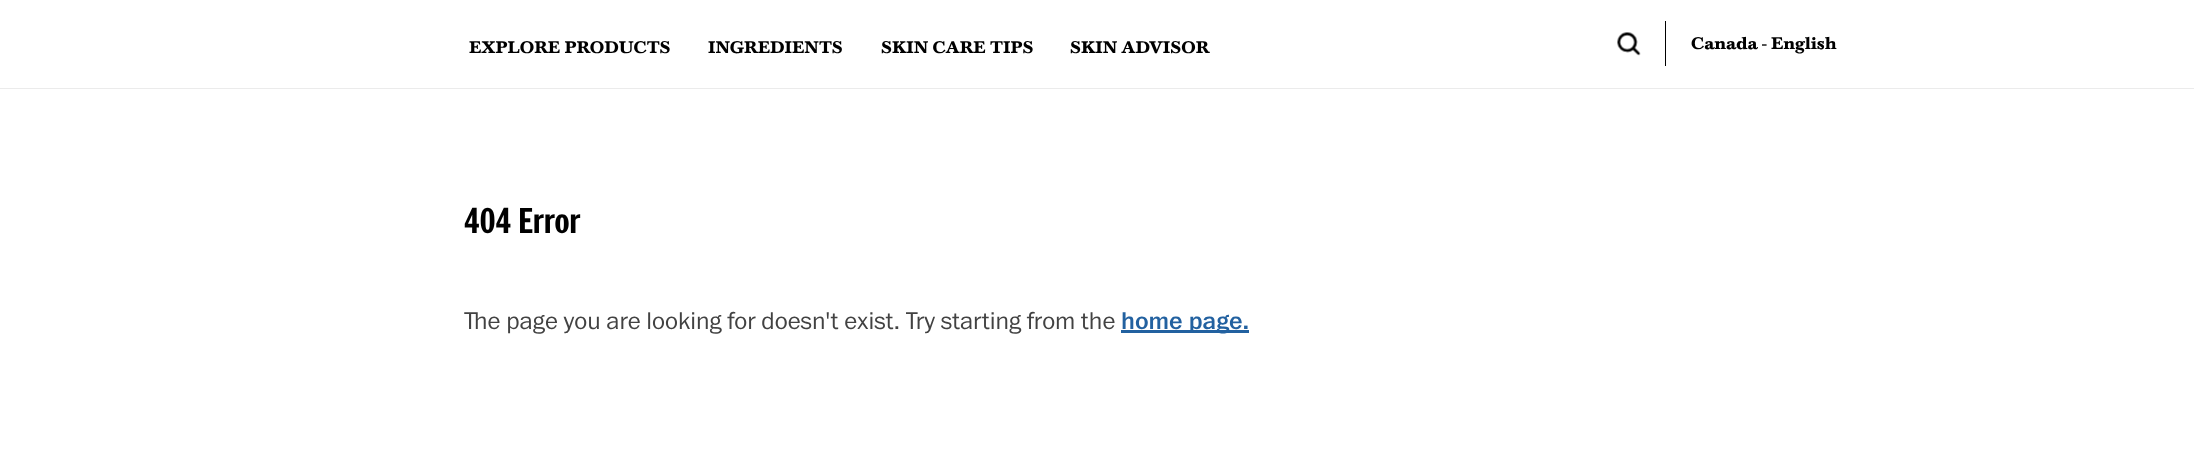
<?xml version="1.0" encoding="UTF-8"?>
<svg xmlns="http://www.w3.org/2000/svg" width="2194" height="465">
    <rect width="100%" height="100%" fill="#FFFFFF"/>
    <rect x="0" y="88" width="2194" height="1" fill="#EBEBEB"/>
    <text x="469" y="53" font-family="Baskerville" font-size="17.5" font-weight="700" fill="#000000">EXPLORE PRODUCTS</text>
    <text x="708" y="53" font-family="Baskerville" font-size="17.5" font-weight="700" fill="#000000">INGREDIENTS</text>
    <text x="881" y="53" font-family="Baskerville" font-size="17.5" font-weight="700" fill="#000000">SKIN CARE TIPS</text>
    <text x="1070" y="53" font-family="Baskerville" font-size="17.5" font-weight="700" fill="#000000">SKIN ADVISOR</text>
    <image x="1617" y="32" width="24" height="24" href="img_01.png"/>
    <rect x="1665" y="21" width="1" height="45" fill="#000000"/>
    <text x="1691" y="49" font-family="Baskerville" font-size="17.5" font-weight="700" fill="#000000">Canada - English</text>
    <text x="464" y="233" font-family="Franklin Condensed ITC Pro" font-size="37.5" font-weight="700" fill="#000000">404 Error</text>
    <text x="464" y="329" font-family="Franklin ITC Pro" font-size="25" font-weight="300" fill="#424242">The page you are looking for doesn't exist. Try starting from the</text>
    <rect x="1121" y="330" width="128" height="3" fill="#2261A0"/>
    <text x="1121" y="329" font-family="Franklin ITC Pro" font-size="25" font-weight="500" fill="#2261A0">home page.</text>
</svg>
